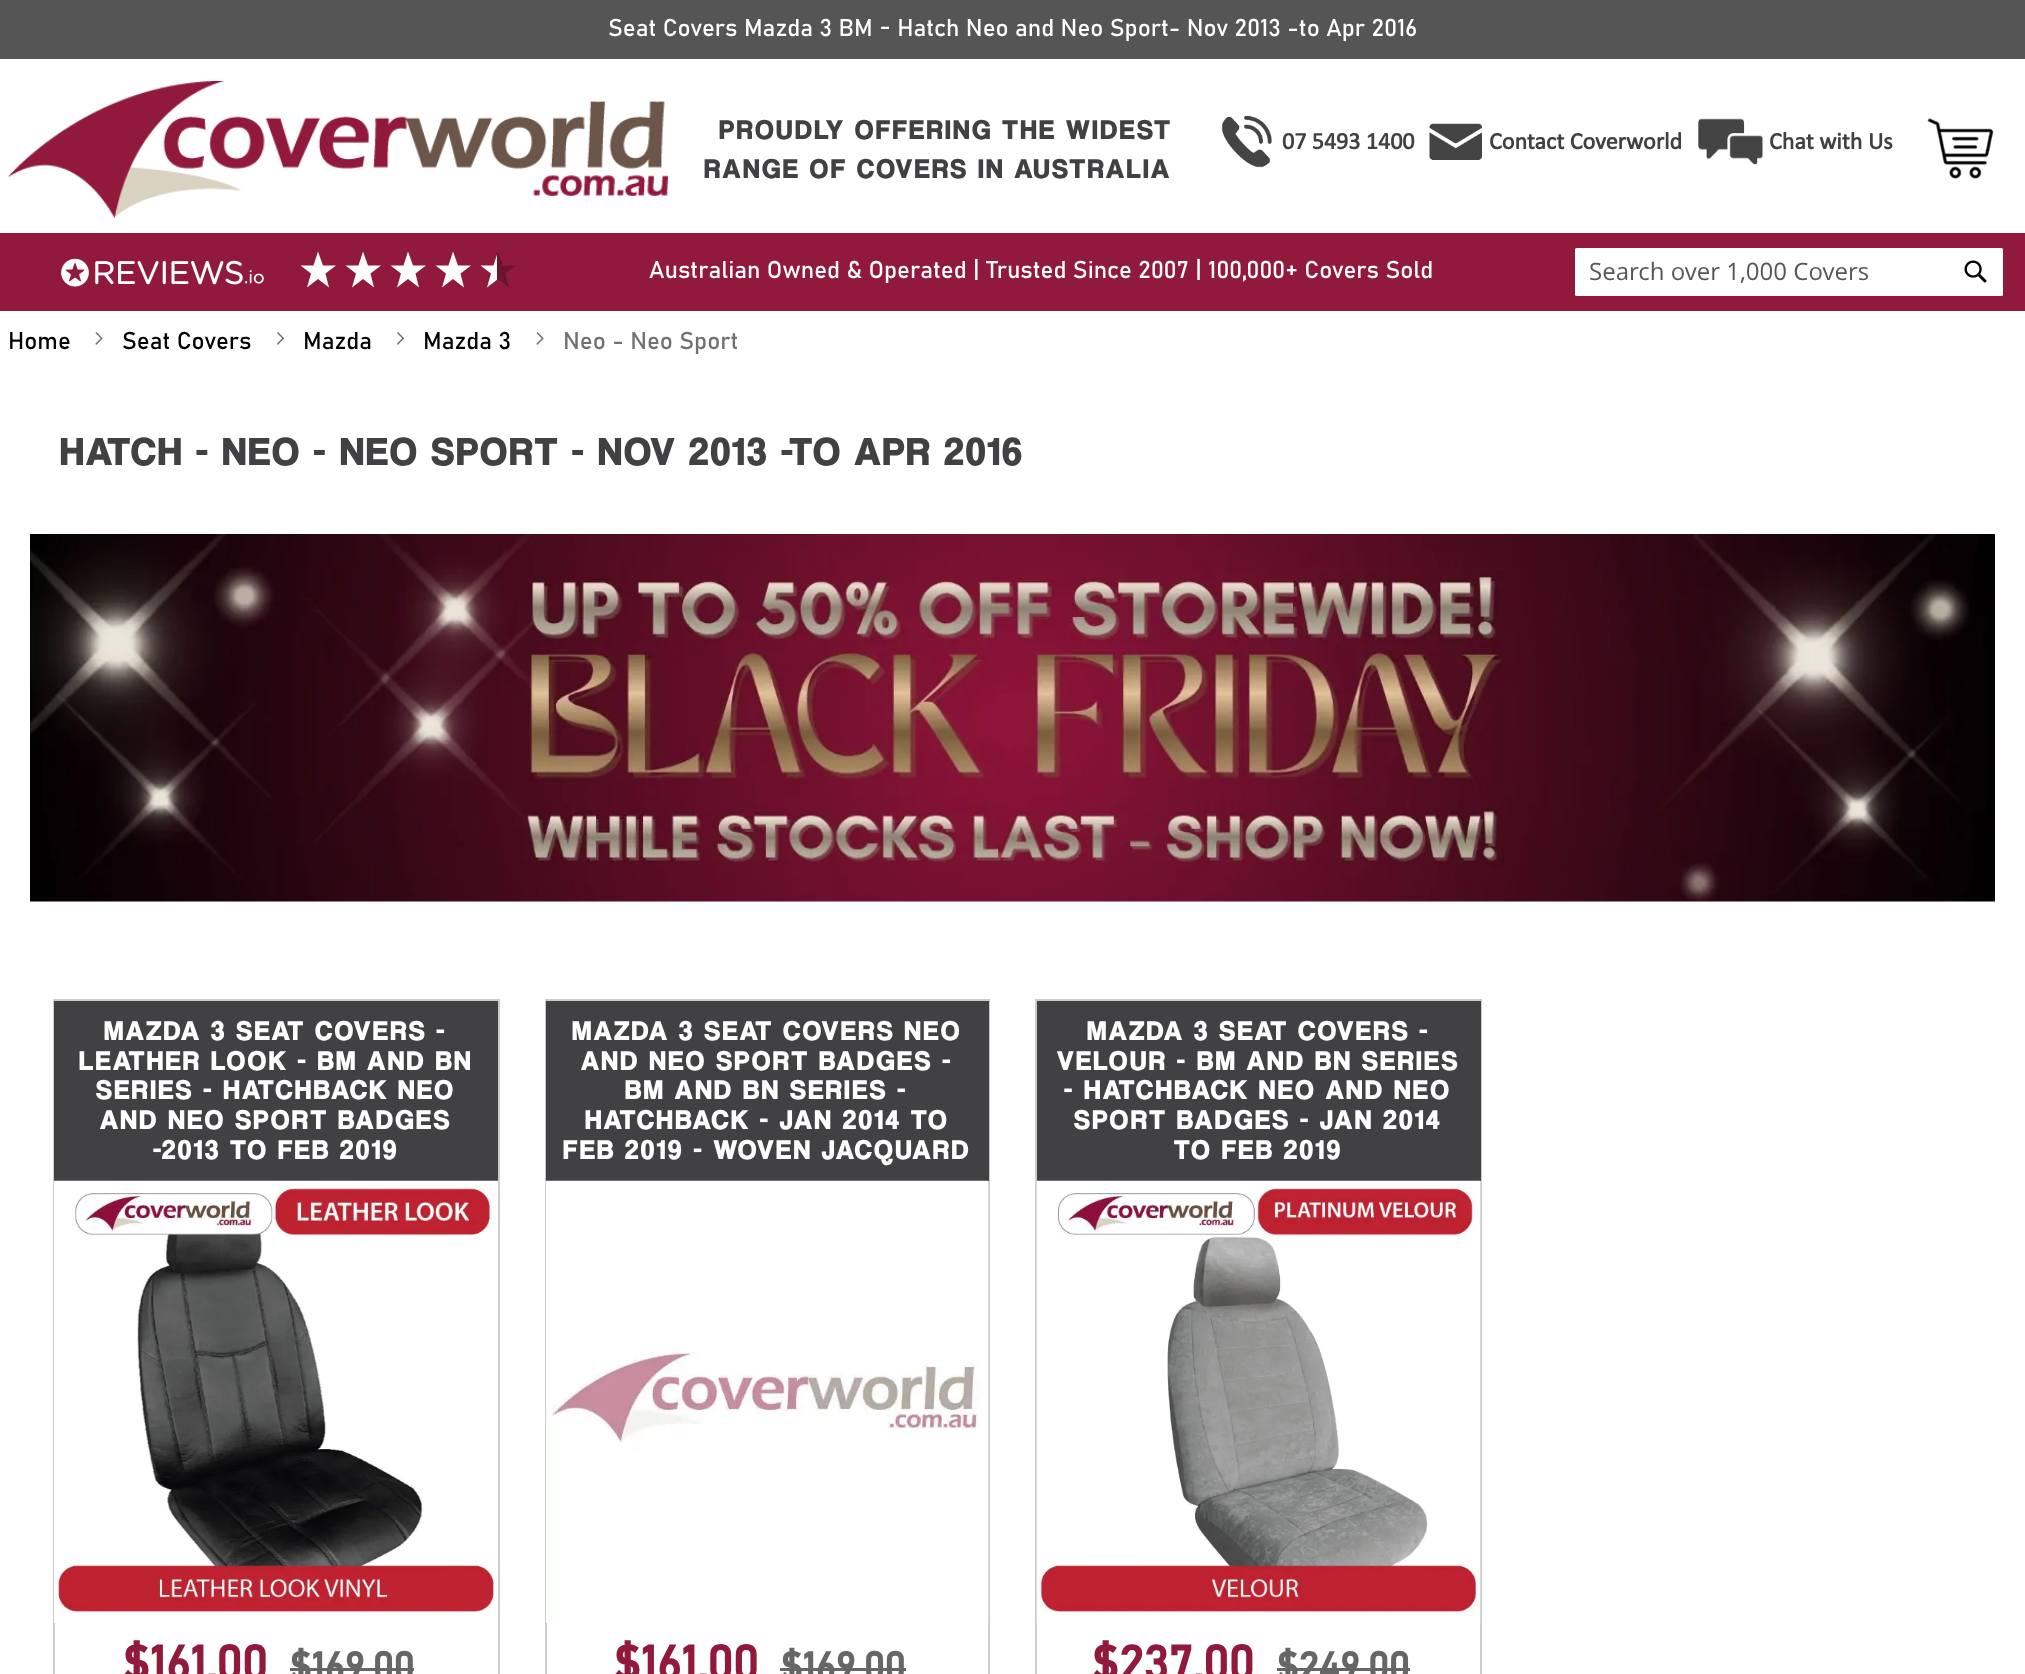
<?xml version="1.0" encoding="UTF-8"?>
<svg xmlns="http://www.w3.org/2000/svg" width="2025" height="1674">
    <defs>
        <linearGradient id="g1" gradientUnits="userSpaceOnUse" x1="475" y1="270" x2="520" y2="270"><stop offset="0.5" stop-color="#FFFFFF"/><stop offset="0.5" stop-color="#6C132D"/></linearGradient>
    </defs>
    <rect width="100%" height="100%" fill="#FFFFFF"/>
    <rect x="0" y="0" width="2025" height="59" fill="#555555"/>
    <text x="608" y="36" font-family="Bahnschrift" font-size="24" fill="#FFFFFF">Seat Covers Mazda 3 BM - Hatch Neo and Neo Sport- Nov 2013 -to Apr 2016</text>
    <image x="8" y="81" width="660" height="137" href="img_01.png"/>
    <text x="719" y="139" font-family="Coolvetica" font-size="27" font-weight="700" letter-spacing="3" fill="#414042">PROUDLY OFFERING THE WIDEST</text>
    <text x="704" y="178" font-family="Coolvetica" font-size="27" font-weight="700" letter-spacing="3" fill="#414042">RANGE OF COVERS IN AUSTRALIA</text>
    <image x="1221" y="115" width="51" height="53" href="img_02.png"/>
    <text x="1282" y="149" font-family="Calibri" font-size="24" font-weight="700" fill="#414042">07 5493 1400</text>
    <image x="1429" y="123" width="53" height="37" href="img_03.png"/>
    <text x="1489" y="149" font-family="Calibri" font-size="24" font-weight="700" fill="#414042">Contact Coverworld</text>
    <image x="1698" y="118" width="65" height="47" href="img_04.png"/>
    <text x="1769" y="149" font-family="Calibri" font-size="24" font-weight="700" fill="#414042">Chat with Us</text>
    <image x="1927" y="118" width="67" height="61" href="img_05.png"/>
    <rect x="0" y="233" width="2025" height="78" fill="#90193C"/>
    <image x="61" y="258" width="203" height="29" href="img_06.png"/>
    <path d="M 318 251.5 L 313.5 265.5 H 300.5 L 311 273.5 L 307 287.5 L 318 279 L 329 287.5 L 325.5 273.5 L 336 265.5 H 323 Z" fill="#FFFFFF"/>
    <path d="M 363 251.5 L 358.5 265.5 H 345.5 L 356 273.5 L 352 287.5 L 363 279 L 374 287.5 L 370.5 273.5 L 381 265.5 H 368 Z" fill="#FFFFFF"/>
    <path d="M 408 251.5 L 403.5 265.5 H 390.5 L 401 273.5 L 397 287.5 L 408 279 L 419 287.5 L 415.5 273.5 L 426 265.5 H 413 Z" fill="#FFFFFF"/>
    <path d="M 453 251.5 L 448.5 265.5 H 435.5 L 446 273.5 L 442 287.5 L 453 279 L 464 287.5 L 460.5 273.5 L 471 265.5 H 458 Z" fill="#FFFFFF"/>
    <path d="M 498 251.5 L 493.5 265.5 H 480.5 L 491 273.5 L 487 287.5 L 498 279 L 509 287.5 L 505.5 273.5 L 516 265.5 H 503 Z" fill="url(#g1)"/>
    <text x="649" y="278" font-family="Bahnschrift" font-size="24" fill="#FFFFFF">Australian Owned &amp; Operated | Trusted Since 2007 | 100,000+ Covers Sold</text>
    <rect x="1575" y="248" width="428" height="48" rx="1.5" fill="#FFFFFF"/>
    <text x="1589" y="280" font-family="Open Sans" font-size="24" fill="#575757">Search over 1,000 Covers</text>
    <image x="1964" y="260" width="23" height="23" href="img_07.png"/>
    <text x="8" y="349" font-family="Bahnschrift" font-size="24" fill="#000000">Home</text>
    <image x="95" y="332" width="8" height="13" href="img_08.png"/>
    <text x="122" y="349" font-family="Bahnschrift" font-size="24" fill="#000000">Seat Covers</text>
    <image x="276" y="332" width="9" height="13" href="img_09.png"/>
    <text x="303" y="349" font-family="Bahnschrift" font-size="24" fill="#000000">Mazda</text>
    <image x="396" y="332" width="9" height="13" href="img_09.png"/>
    <text x="423" y="349" font-family="Bahnschrift" font-size="24" fill="#000000">Mazda 3</text>
    <image x="536" y="332" width="8" height="13" href="img_08.png"/>
    <text x="563" y="349" font-family="Bahnschrift" font-size="24" fill="#707070">Neo - Neo Sport</text>
    <text x="60" y="465" font-family="Coolvetica" font-size="39" font-weight="700" letter-spacing="3" fill="#414042">HATCH - NEO - NEO SPORT - NOV 2013 -TO APR 2016</text>
    <image x="30" y="534" width="1965" height="368" href="img_10.png"/>
    <rect x="54" y="1000" width="445" height="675" fill="none" stroke="#CCCCCC" stroke-width="2"/>
    <rect x="54" y="1001" width="444" height="180" fill="#414042"/>
    <text x="104" y="1040" font-family="Coolvetica" font-size="27" font-weight="700" letter-spacing="3" fill="#FFFFFF">MAZDA 3 SEAT COVERS -</text>
    <text x="79" y="1070" font-family="Coolvetica" font-size="27" font-weight="700" letter-spacing="3" fill="#FFFFFF">LEATHER LOOK - BM AND BN</text>
    <text x="96" y="1099" font-family="Coolvetica" font-size="27" font-weight="700" letter-spacing="3" fill="#FFFFFF">SERIES - HATCHBACK NEO</text>
    <text x="100" y="1129" font-family="Coolvetica" font-size="27" font-weight="700" letter-spacing="3" fill="#FFFFFF">AND NEO SPORT BADGES</text>
    <text x="153" y="1159" font-family="Coolvetica" font-size="27" font-weight="700" letter-spacing="3" fill="#FFFFFF">-2013 TO FEB 2019</text>
    <image x="54" y="1180" width="444" height="443" href="img_11.png"/>
    <text x="122" y="1680" font-family="Bahnschrift" font-size="48" font-weight="700" fill="#90193C">$161.00</text>
    <text x="289" y="1680" font-family="Bahnschrift" font-size="39" font-weight="700" fill="#666666">$169.00</text>
    <rect x="290" y="1668" width="124" height="3" fill="#666666"/>
    <rect x="546" y="1000" width="443" height="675" fill="none" stroke="#CCCCCC" stroke-width="2"/>
    <rect x="546" y="1001" width="443" height="180" fill="#414042"/>
    <text x="572" y="1040" font-family="Coolvetica" font-size="27" font-weight="700" letter-spacing="3" fill="#FFFFFF">MAZDA 3 SEAT COVERS NEO</text>
    <text x="581" y="1070" font-family="Coolvetica" font-size="27" font-weight="700" letter-spacing="3" fill="#FFFFFF">AND NEO SPORT BADGES -</text>
    <text x="625" y="1099" font-family="Coolvetica" font-size="27" font-weight="700" letter-spacing="3" fill="#FFFFFF">BM AND BN SERIES -</text>
    <text x="585" y="1129" font-family="Coolvetica" font-size="27" font-weight="700" letter-spacing="3" fill="#FFFFFF">HATCHBACK - JAN 2014 TO</text>
    <text x="563" y="1159" font-family="Coolvetica" font-size="27" font-weight="700" letter-spacing="3" fill="#FFFFFF">FEB 2019 - WOVEN JACQUARD</text>
    <image x="546" y="1180" width="443" height="443" href="img_12.png"/>
    <text x="613" y="1680" font-family="Bahnschrift" font-size="48" font-weight="700" fill="#90193C">$161.00</text>
    <text x="780" y="1680" font-family="Bahnschrift" font-size="39" font-weight="700" fill="#666666">$169.00</text>
    <rect x="780" y="1668" width="126" height="3" fill="#666666"/>
    <rect x="1036" y="1000" width="445" height="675" fill="none" stroke="#CCCCCC" stroke-width="2"/>
    <rect x="1037" y="1001" width="444" height="180" fill="#414042"/>
    <text x="1087" y="1040" font-family="Coolvetica" font-size="27" font-weight="700" letter-spacing="3" fill="#FFFFFF">MAZDA 3 SEAT COVERS -</text>
    <text x="1057" y="1070" font-family="Coolvetica" font-size="27" font-weight="700" letter-spacing="3" fill="#FFFFFF">VELOUR - BM AND BN SERIES</text>
    <text x="1064" y="1099" font-family="Coolvetica" font-size="27" font-weight="700" letter-spacing="3" fill="#FFFFFF">- HATCHBACK NEO AND NEO</text>
    <text x="1074" y="1129" font-family="Coolvetica" font-size="27" font-weight="700" letter-spacing="3" fill="#FFFFFF">SPORT BADGES - JAN 2014</text>
    <text x="1174" y="1159" font-family="Coolvetica" font-size="27" font-weight="700" letter-spacing="3" fill="#FFFFFF">TO FEB 2019</text>
    <image x="1036" y="1180" width="445" height="443" href="img_13.png"/>
    <text x="1091" y="1680" font-family="Bahnschrift" font-size="48" font-weight="700" fill="#90193C">$237.00</text>
    <text x="1276" y="1680" font-family="Bahnschrift" font-size="39" font-weight="700" fill="#666666">$249.00</text>
    <rect x="1277" y="1668" width="133" height="3" fill="#666666"/>
</svg>
